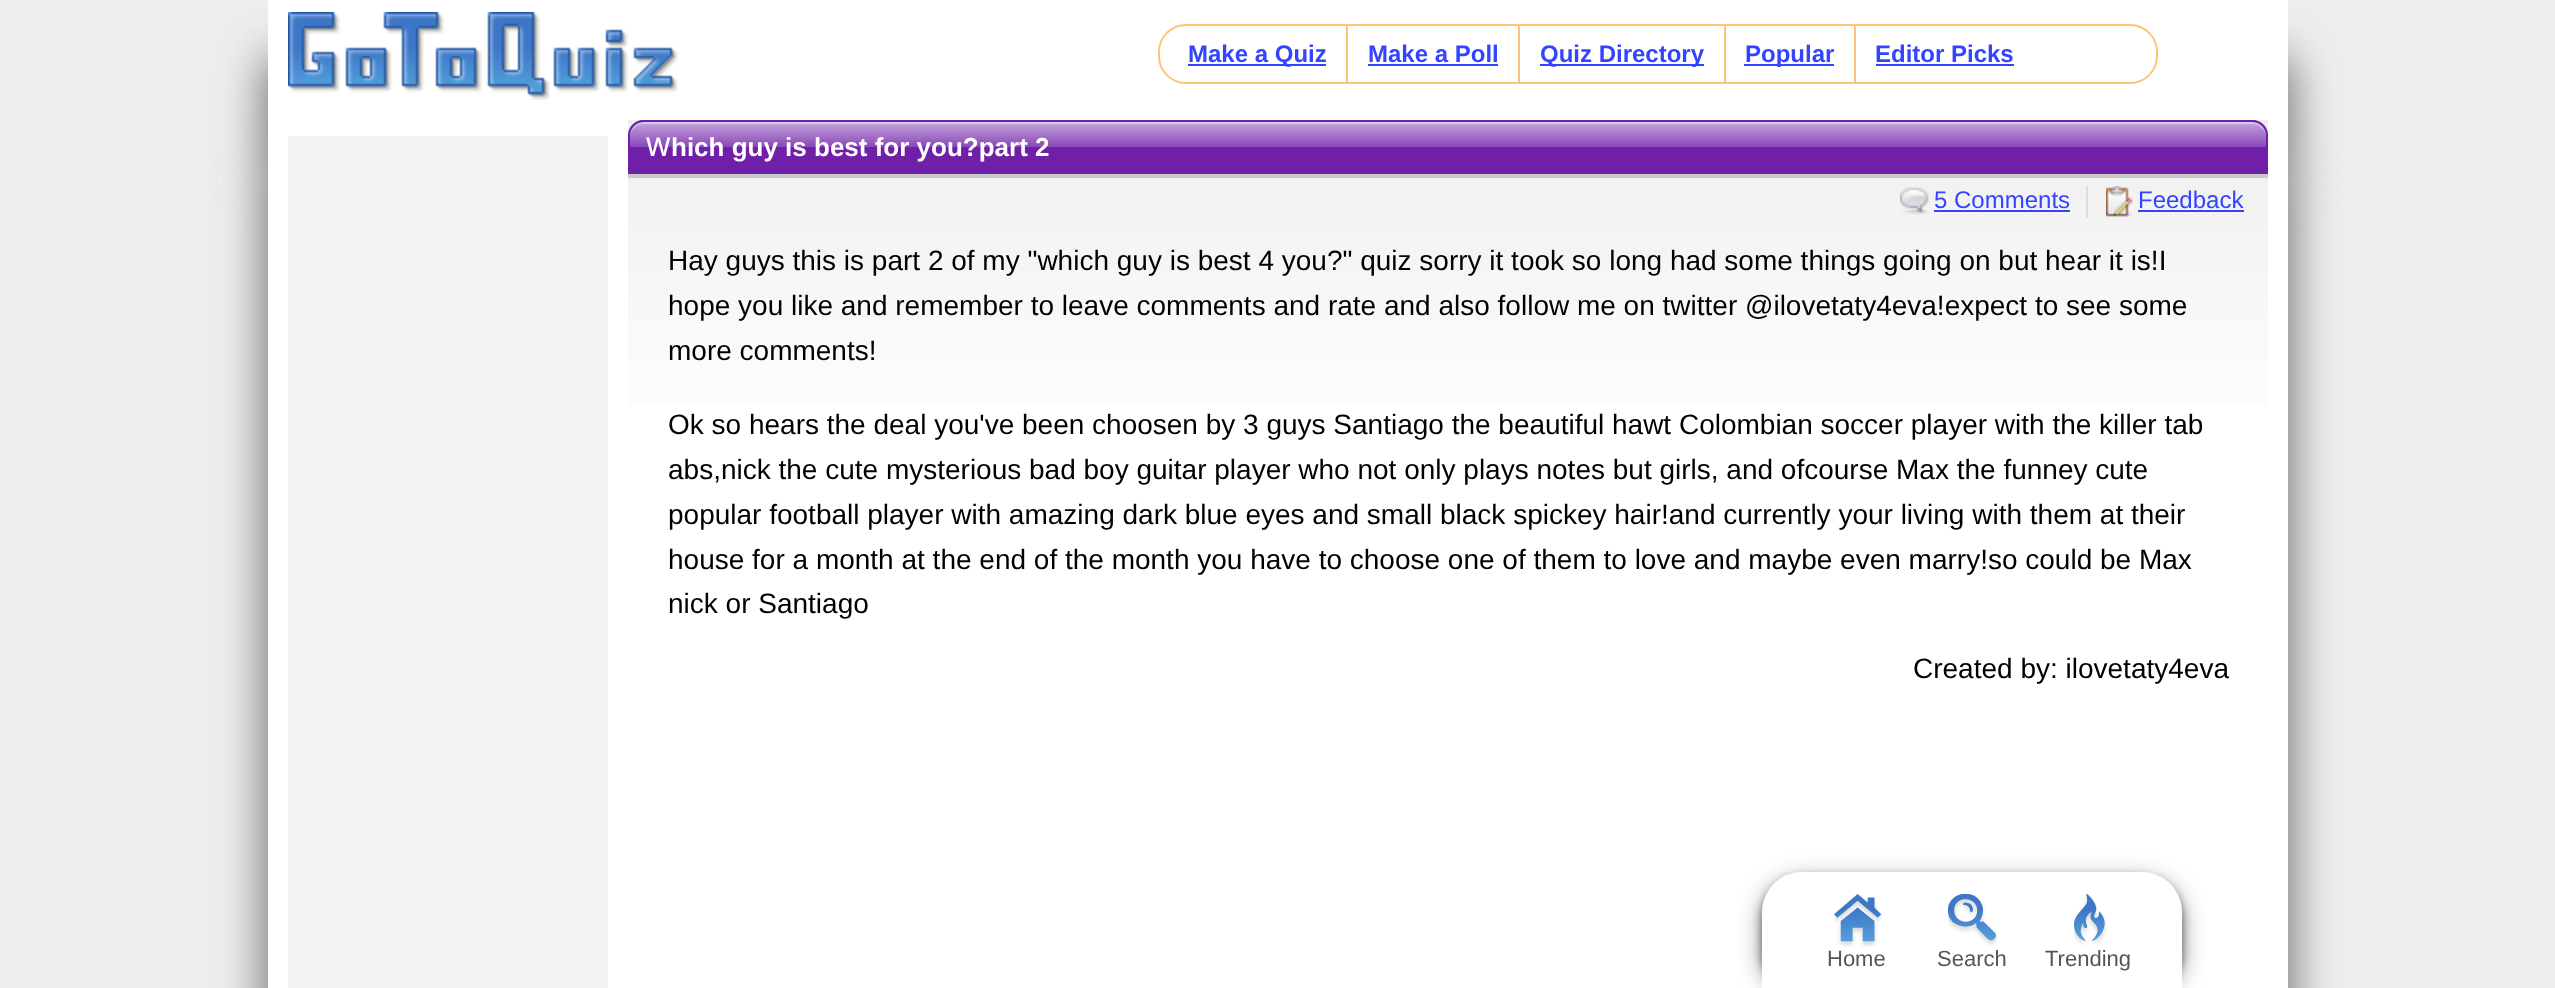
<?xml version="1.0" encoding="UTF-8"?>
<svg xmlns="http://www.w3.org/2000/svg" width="2555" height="988">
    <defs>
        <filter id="blur1" x="-50%" y="-200%" width="200%" height="500%"><feGaussianBlur stdDeviation="24"/></filter>
        <linearGradient id="g1" gradientUnits="userSpaceOnUse" x1="1448" y1="120" x2="1448" y2="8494"><stop offset="0" stop-color="#FFFFFF"/><stop offset="0" stop-color="#EEEEEE"/><stop offset="0.04" stop-color="#FFFFFF"/></linearGradient>
        <clipPath id="clip1"><path d="M 644 120 H 2252 C 2261 120 2268 127 2268 136 V 174 H 628 V 136 C 628 127 635 120 644 120 Z"/></clipPath>
        <linearGradient id="g2" gradientUnits="userSpaceOnUse" x1="1448" y1="172" x2="1448" y2="122"><stop offset="0.5" stop-color="#FFFFFF" stop-opacity="0"/><stop offset="0.5" stop-color="#FFFFFF" stop-opacity="0.18"/><stop offset="1" stop-color="#FFFFFF" stop-opacity="0.6"/></linearGradient>
        <filter id="blur2" x="-50%" y="-200%" width="200%" height="500%"><feGaussianBlur stdDeviation="5"/></filter>
        <filter id="blur3" x="-50%" y="-200%" width="200%" height="500%"><feGaussianBlur stdDeviation="12"/></filter>
    </defs>
    <rect width="100%" height="100%" fill="#EEEEEE"/>
    <rect x="266" y="58" width="2024" height="124" fill="#666666" filter="url(#blur1)"/>
    <rect x="268" y="0" width="2020" height="120" fill="#FFFFFF"/>
    <image x="288" y="12" width="390" height="88" href="img_01.png"/>
    <rect x="1159" y="25" width="998" height="58" rx="27" fill="none" stroke="#FDC477" stroke-width="2"/>
    <rect x="1346" y="26" width="2" height="56" fill="#FDC477"/>
    <rect x="1188" y="64" width="138" height="2" fill="#3344FF"/>
    <text x="1188" y="62" font-family="Liberation Sans" font-size="24" font-weight="700" fill="#3344FF">Make a Quiz</text>
    <rect x="1518" y="26" width="2" height="56" fill="#FDC477"/>
    <text x="1368" y="62" font-family="Liberation Sans" font-size="24" font-weight="700" fill="#3344FF">Make a Poll</text>
    <rect x="1368" y="64" width="130" height="2" fill="#3344FF"/>
    <rect x="1724" y="26" width="2" height="56" fill="#FDC477"/>
    <rect x="1540" y="64" width="164" height="2" fill="#3344FF"/>
    <text x="1540" y="62" font-family="Liberation Sans" font-size="24" font-weight="700" fill="#3344FF">Quiz Directory</text>
    <rect x="1854" y="26" width="2" height="56" fill="#FDC477"/>
    <rect x="1744" y="64" width="90" height="2" fill="#3344FF"/>
    <text x="1745" y="62" font-family="Liberation Sans" font-size="24" font-weight="700" fill="#3344FF">Popular</text>
    <text x="1875" y="62" font-family="Liberation Sans" font-size="24" font-weight="700" fill="#3344FF">Editor Picks</text>
    <rect x="1876" y="64" width="138" height="2" fill="#3344FF"/>
    <rect x="266" y="178" width="2024" height="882" fill="#666666" filter="url(#blur1)"/>
    <rect x="268" y="120" width="2020" height="868" fill="#FFFFFF"/>
    <rect x="288" y="136" width="320" height="852" fill="#F2F2F2"/>
    <rect x="628" y="120" width="1640" height="286" fill="url(#g1)"/>
    <rect x="628" y="174" width="1640" height="4" fill="#C8C8C8"/>
    <path d="M 644 120 H 2252 C 2261 120 2268 127 2268 136 V 174 H 628 V 136 C 628 127 635 120 644 120 Z" fill="#6F1FA8"/>
    <g clip-path="url(#clip1)">
        <rect x="628" y="122" width="1640" height="25" fill="url(#g2)"/>
    </g>
    <path d="M 644 124 H 2252 C 2260 124 2266 130 2266 138 V 136 C 2266 128 2260 122 2252 122 H 644 C 636 122 630 128 630 136 V 138 C 630 130 636 124 644 124 Z" fill="#FFFFFF" fill-opacity="0.4"/>
    <path d="M 644 121 H 2252 C 2260.5 121 2267 127.5 2267 136 V 173 H 629 V 136 C 629 127.5 635.5 121 644 121 Z" fill="none" stroke="#6F1FA8" stroke-width="2"/>
    <text x="646" y="156" font-family="Noto Sans" font-size="26" font-weight="500" fill="#FFFFFF">W</text>
    <text x="671" y="156" font-family="Liberation Sans" font-size="26" font-weight="700" fill="#FFFFFF">hich guy is best for you?part 2</text>
    <rect x="2086" y="186" width="2" height="32" fill="#DDDDDD"/>
    <image x="1900" y="187" width="29" height="28" href="img_02.png"/>
    <text x="1934" y="208" font-family="Liberation Sans" font-size="24" fill="#3344FF">5 Comments</text>
    <rect x="1934" y="210" width="136" height="2" fill="#3344FF"/>
    <image x="2106" y="186" width="27" height="31" href="img_03.png"/>
    <text x="2138" y="208" font-family="Liberation Sans" font-size="24" fill="#3344FF">Feedback</text>
    <rect x="2138" y="210" width="106" height="2" fill="#3344FF"/>
    <text font-family="Liberation Sans" font-size="28" fill="#000000">
        <tspan x="668" y="270">Hay guys this is part 2 of my "which guy is best 4 you?" quiz sorry it took so long had some things going on but hear it is!I</tspan>
        <tspan x="668" y="315">hope you like and remember to leave comments and rate and also follow me on twitter @ilovetaty4eva!expect to see some</tspan>
        <tspan x="668" y="360">more comments!</tspan>
    </text>
    <text font-family="Liberation Sans" font-size="28" fill="#000000">
        <tspan x="668" y="434">Ok so hears the deal you've been choosen by 3 guys Santiago the beautiful hawt Colombian soccer player with the killer tab</tspan>
        <tspan x="668" y="479">abs,nick the cute mysterious bad boy guitar player who not only plays notes but girls, and ofcourse Max the funney cute</tspan>
        <tspan x="668" y="524">popular football player with amazing dark blue eyes and small black spickey hair!and currently your living with them at their</tspan>
        <tspan x="668" y="569">house for a month at the end of the month you have to choose one of them to love and maybe even marry!so could be Max</tspan>
        <tspan x="668" y="613">nick or Santiago</tspan>
    </text>
    <text x="1913" y="678" font-family="Liberation Sans" font-size="28" fill="#000000">Created by: ilovetaty4eva</text>
    <rect x="1762" y="878" width="420" height="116" rx="40" fill="#000000" fill-opacity="0.54" filter="url(#blur2)"/>
    <rect x="1762" y="880" width="420" height="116" rx="40" fill="#000000" fill-opacity="0.41" filter="url(#blur3)"/>
    <path d="M 1802 872 H 2142 C 2164 872 2182 890 2182 912 V 988 H 1762 V 912 C 1762 890 1780 872 1802 872 Z" fill="#FFFFFF"/>
    <image x="1834" y="894" width="48" height="53" href="img_04.png"/>
    <text x="1827" y="966" font-family="Liberation Sans" font-size="22" fill="#555555">Home</text>
    <image x="1948" y="894" width="50" height="52" href="img_05.png"/>
    <text x="1937" y="966" font-family="Liberation Sans" font-size="22" fill="#555555">Search</text>
    <image x="2074" y="894" width="33" height="51" href="img_06.png"/>
    <text x="2045" y="966" font-family="Liberation Sans" font-size="22" fill="#555555">Trending</text>
</svg>
